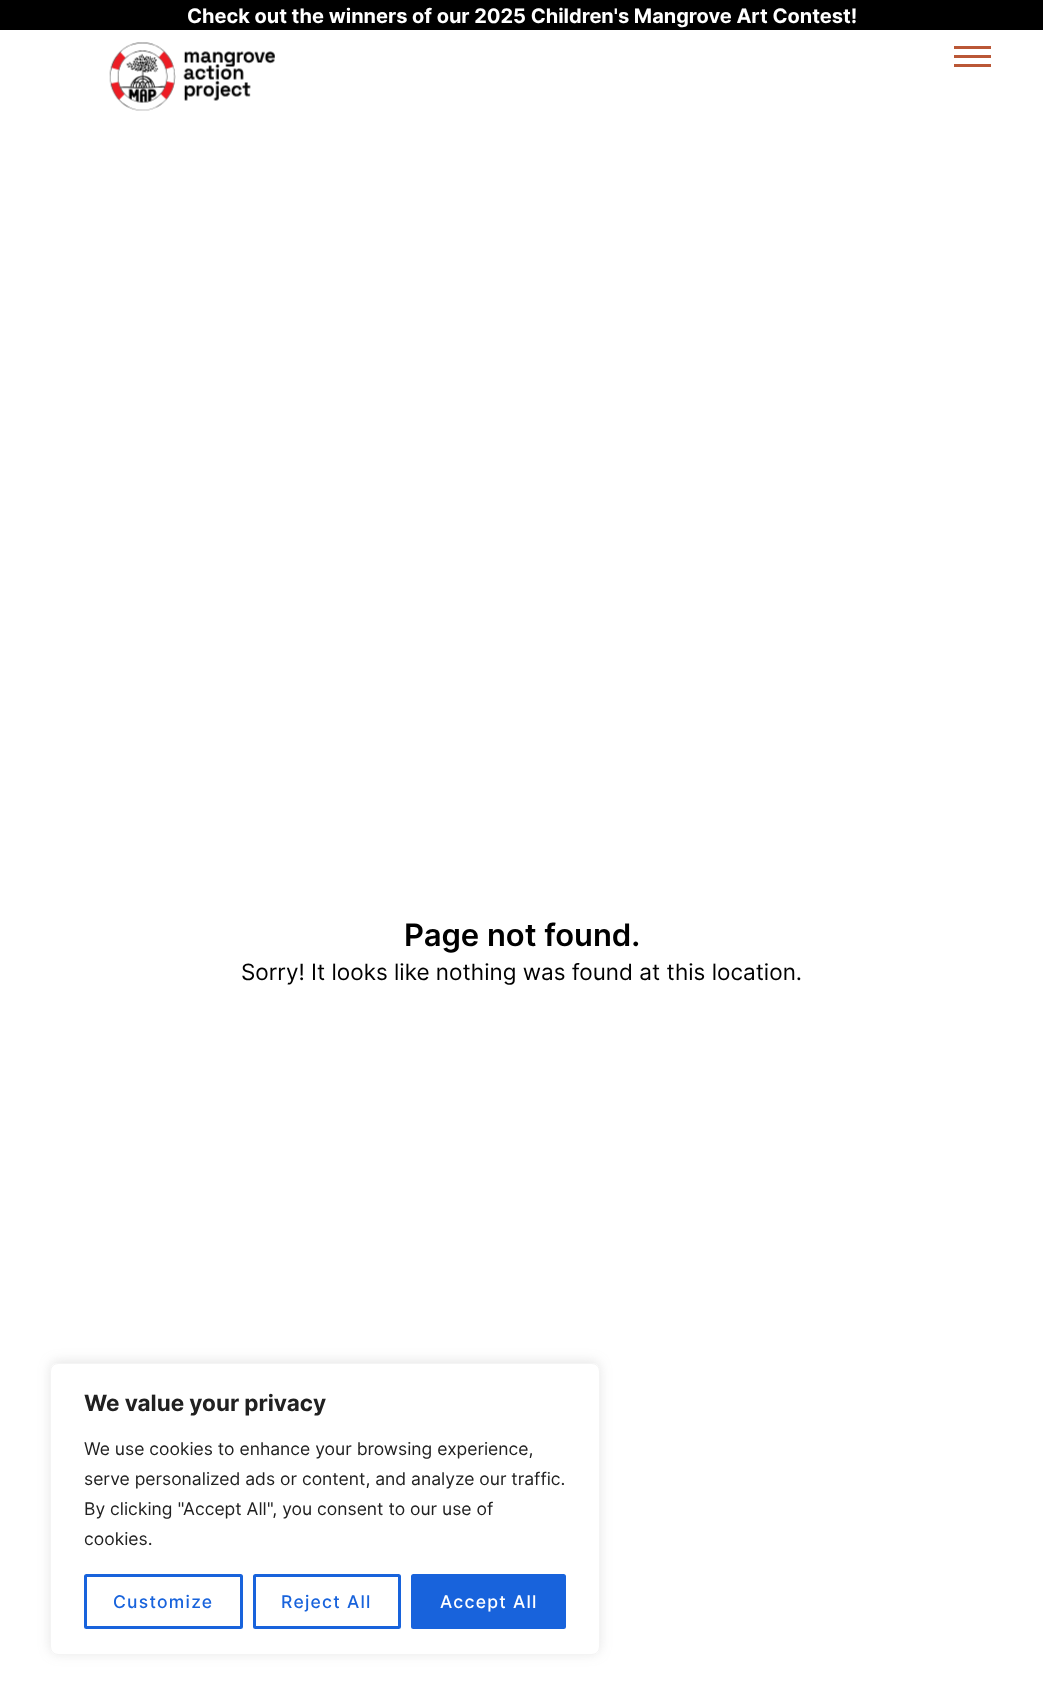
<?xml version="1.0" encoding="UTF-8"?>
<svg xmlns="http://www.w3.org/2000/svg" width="1043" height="1705">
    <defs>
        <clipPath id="clip1"><path d="M 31 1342 H 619 V 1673 H 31 Z M 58 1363 H 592 C 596.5 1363 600 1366.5 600 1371 V 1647 C 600 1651.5 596.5 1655 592 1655 H 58 C 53.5 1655 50 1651.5 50 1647 V 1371 C 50 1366.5 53.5 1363 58 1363 Z" clip-rule="evenodd"/></clipPath>
        <filter id="blur1" x="-50%" y="-200%" width="200%" height="500%"><feGaussianBlur stdDeviation="6"/></filter>
    </defs>
    <rect width="100%" height="100%" fill="#FFFFFF"/>
    <rect x="0" y="0" width="1043" height="30" fill="#000000"/>
    <text x="187" y="23" font-family="Inter" font-size="20" font-weight="700" fill="#FFFFFF">Check out the winners of our 2025 Children's Mangrove Art Contest!</text>
    <image x="109" y="42" width="166" height="69" href="img_01.png"/>
    <rect x="954" y="55" width="37" height="3" fill="#BA5736"/>
    <rect x="954" y="46" width="37" height="3" fill="#BA5736"/>
    <rect x="954" y="64" width="37" height="3" fill="#BA5736"/>
    <text x="404" y="946" font-family="Inter" font-size="31" font-weight="600" fill="#000000">Page not found.</text>
    <text x="241" y="980" font-family="Inter" font-size="22.5" fill="#000000">Sorry! It looks like nothing was found at this location.</text>
    <g clip-path="url(#clip1)">
        <rect x="50" y="1361" width="550" height="293" rx="8" fill="#ACABAB" fill-opacity="0.3" filter="url(#blur1)"/>
    </g>
    <rect x="50.5" y="1363.5" width="549" height="291" rx="7.5" fill="none" stroke="#F4F4F4"/>
    <text x="84" y="1411" font-family="Inter" font-size="22.5" font-weight="700" fill="#212121">We value your privacy</text>
    <text font-family="Inter" font-size="17.5" fill="#212121">
        <tspan x="84" y="1455">We use cookies to enhance your browsing experience,</tspan>
        <tspan x="84" y="1485">serve personalized ads or content, and analyze our traffic.</tspan>
        <tspan x="84" y="1515">By clicking "Accept All", you consent to our use of</tspan>
        <tspan x="84" y="1545">cookies.</tspan>
    </text>
    <rect x="85.5" y="1575.5" width="156" height="52" rx="1" fill="none" stroke="#1863DC" stroke-width="3"/>
    <text x="113" y="1608" font-family="Inter" font-size="17.5" font-weight="500" letter-spacing="1.25" fill="#1863DC">Customize</text>
    <rect x="254.5" y="1575.5" width="145" height="52" rx="1" fill="none" stroke="#1863DC" stroke-width="3"/>
    <text x="281" y="1608" font-family="Inter" font-size="17.5" font-weight="500" letter-spacing="1.25" fill="#1863DC">Reject All</text>
    <rect x="412.5" y="1575.5" width="152" height="52" rx="1" fill="#1863DC" stroke="#1863DC" stroke-width="3"/>
    <text x="440" y="1608" font-family="Inter" font-size="17.5" font-weight="500" letter-spacing="1.25" fill="#FFFFFF">Accept All</text>
</svg>
